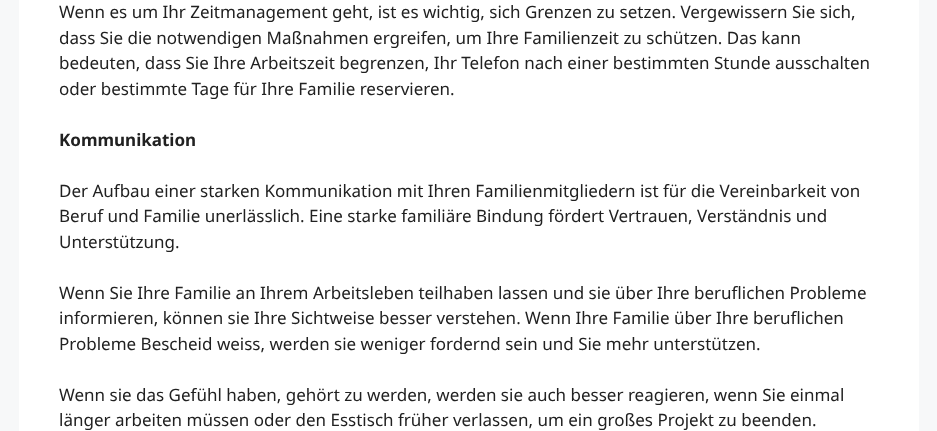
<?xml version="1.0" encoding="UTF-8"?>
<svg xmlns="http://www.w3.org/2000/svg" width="937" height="431">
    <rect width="100%" height="100%" fill="#F7F8F9"/>
    <rect x="19" y="0" width="900" height="431" fill="#FFFFFF"/>
    <text font-family="Noto Sans" font-size="17" fill="#212121">
        <tspan x="59" y="18">Wenn es um Ihr Zeitmanagement geht, ist es wichtig, sich Grenzen zu setzen. Vergewissern Sie sich,</tspan>
        <tspan x="59" y="44">dass Sie die notwendigen Maßnahmen ergreifen, um Ihre Familienzeit zu schützen. Das kann</tspan>
        <tspan x="59" y="69">bedeuten, dass Sie Ihre Arbeitszeit begrenzen, Ihr Telefon nach einer bestimmten Stunde ausschalten</tspan>
        <tspan x="59" y="95">oder bestimmte Tage für Ihre Familie reservieren.</tspan>
    </text>
    <text x="59" y="146" font-family="Noto Sans" font-size="17" font-weight="700" fill="#212121">Kommunikation</text>
    <text font-family="Noto Sans" font-size="17" fill="#212121">
        <tspan x="59" y="197">Der Aufbau einer starken Kommunikation mit Ihren Familienmitgliedern ist für die Vereinbarkeit von</tspan>
        <tspan x="59" y="222">Beruf und Familie unerlässlich. Eine starke familiäre Bindung fördert Vertrauen, Verständnis und</tspan>
        <tspan x="59" y="248">Unterstützung.</tspan>
    </text>
    <text font-family="Noto Sans" font-size="17" fill="#212121">
        <tspan x="59" y="299">Wenn Sie Ihre Familie an Ihrem Arbeitsleben teilhaben lassen und sie über Ihre beruflichen Probleme</tspan>
        <tspan x="59" y="324">informieren, können sie Ihre Sichtweise besser verstehen. Wenn Ihre Familie über Ihre beruflichen</tspan>
        <tspan x="59" y="350">Probleme Bescheid weiss, werden sie weniger fordernd sein und Sie mehr unterstützen.</tspan>
    </text>
    <text font-family="Noto Sans" font-size="17" fill="#212121">
        <tspan x="59" y="401">Wenn sie das Gefühl haben, gehört zu werden, werden sie auch besser reagieren, wenn Sie einmal</tspan>
        <tspan x="59" y="426">länger arbeiten müssen oder den Esstisch früher verlassen, um ein großes Projekt zu beenden.</tspan>
    </text>
</svg>
